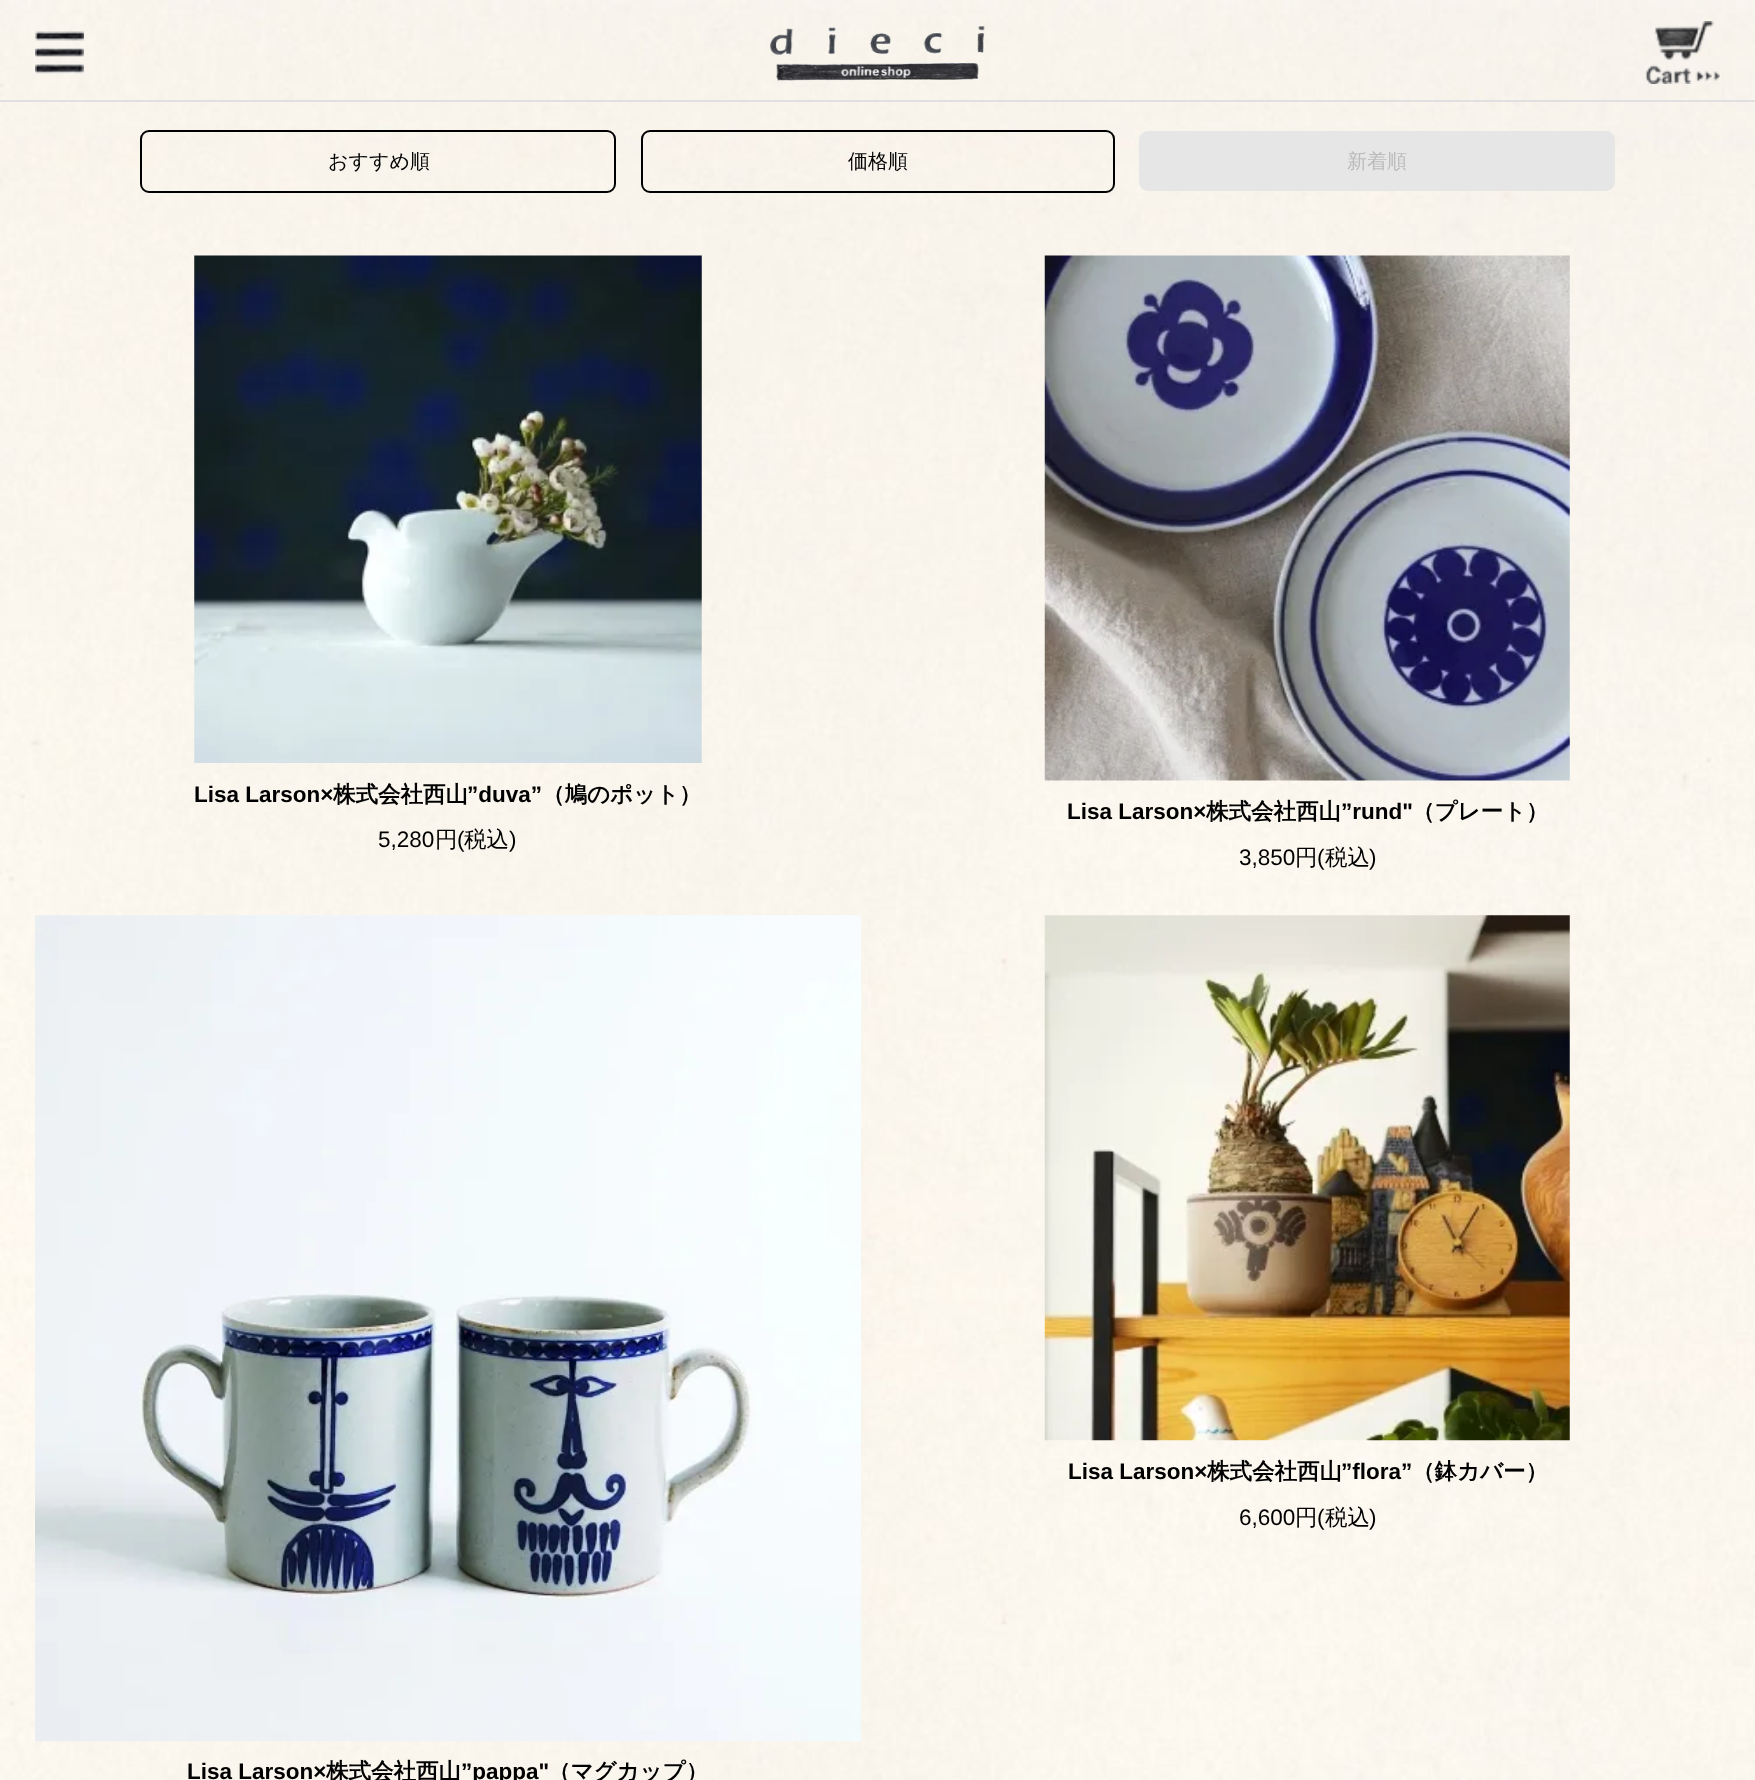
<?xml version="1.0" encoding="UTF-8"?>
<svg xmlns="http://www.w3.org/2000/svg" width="1755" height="1780">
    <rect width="100%" height="100%" fill="#FFFFFF"/>
    <image x="0" y="0" width="1755" height="1780" href="img_01.png"/>
    <rect x="0" y="100" width="1755" height="2" fill="#E0E0E0"/>
    <image x="35" y="31" width="49" height="43" href="img_02.png"/>
    <image x="770" y="26" width="215" height="55" href="img_03.png"/>
    <image x="1645" y="21" width="75" height="63" href="img_04.png"/>
    <rect x="141" y="131" width="474" height="61" rx="8" fill="none" stroke="#000000" stroke-width="2"/>
    <text x="328" y="168" font-family="WenQuanYi Zen Hei" font-size="20" font-weight="500" fill="#000000">おすすめ順</text>
    <rect x="642" y="131" width="472" height="61" rx="8" fill="none" stroke="#000000" stroke-width="2"/>
    <text x="848" y="168" font-family="WenQuanYi Zen Hei" font-size="20" font-weight="500" fill="#000000">価格順</text>
    <rect x="1139" y="131" width="476" height="60" rx="9" fill="#E6E6E6"/>
    <text x="1347" y="168" font-family="WenQuanYi Zen Hei" font-size="20" font-weight="500" fill="#BBBBBB">新着順</text>
    <image x="194" y="255" width="508" height="508" href="img_05.png"/>
    <text x="194" y="802" font-family="Liberation Sans" font-size="22.5" font-weight="700" fill="#000000">Lisa Larson×</text>
    <text x="333" y="802" font-family="WenQuanYi Zen Hei" font-size="22.5" font-weight="700" fill="#000000">株式会社西山</text>
    <text x="467" y="802" font-family="Liberation Sans" font-size="22.5" font-weight="700" fill="#000000">”duva”</text>
    <text x="542" y="802" font-family="WenQuanYi Zen Hei" font-size="22.5" font-weight="700" fill="#000000">（鳩のポット）</text>
    <text x="378" y="847" font-family="Liberation Sans" font-size="22.5" fill="#000000">5,280</text>
    <text x="435" y="847" font-family="WenQuanYi Zen Hei" font-size="22.5" font-weight="500" fill="#000000">円</text>
    <text x="457" y="847" font-family="Liberation Sans" font-size="22.5" fill="#000000">(</text>
    <text x="464" y="847" font-family="WenQuanYi Zen Hei" font-size="22.5" font-weight="500" fill="#000000">税込</text>
    <text x="509" y="847" font-family="Liberation Sans" font-size="22.5" fill="#000000">)</text>
    <image x="1044" y="255" width="526" height="526" href="img_06.png"/>
    <text x="1067" y="819" font-family="Liberation Sans" font-size="22.5" font-weight="700" fill="#000000">Lisa Larson×</text>
    <text x="1206" y="819" font-family="WenQuanYi Zen Hei" font-size="22.5" font-weight="700" fill="#000000">株式会社西山</text>
    <text x="1341" y="819" font-family="Liberation Sans" font-size="22.5" font-weight="700" fill="#000000">”rund"</text>
    <text x="1412" y="819" font-family="WenQuanYi Zen Hei" font-size="22.5" font-weight="700" fill="#000000">（プレート）</text>
    <text x="1239" y="865" font-family="Liberation Sans" font-size="22.5" fill="#000000">3,850</text>
    <text x="1295" y="865" font-family="WenQuanYi Zen Hei" font-size="22.5" font-weight="500" fill="#000000">円</text>
    <text x="1317" y="865" font-family="Liberation Sans" font-size="22.5" fill="#000000">(</text>
    <text x="1325" y="865" font-family="WenQuanYi Zen Hei" font-size="22.5" font-weight="500" fill="#000000">税込</text>
    <text x="1369" y="865" font-family="Liberation Sans" font-size="22.5" fill="#000000">)</text>
    <image x="1044" y="915" width="526" height="526" href="img_07.png"/>
    <text x="1068" y="1479" font-family="Liberation Sans" font-size="22.5" font-weight="700" fill="#000000">Lisa Larson×</text>
    <text x="1207" y="1479" font-family="WenQuanYi Zen Hei" font-size="22.5" font-weight="700" fill="#000000">株式会社西山</text>
    <text x="1341" y="1479" font-family="Liberation Sans" font-size="22.5" font-weight="700" fill="#000000">”flora”</text>
    <text x="1412" y="1479" font-family="WenQuanYi Zen Hei" font-size="22.5" font-weight="700" fill="#000000">（鉢カバー）</text>
    <text x="1239" y="1525" font-family="Liberation Sans" font-size="22.5" fill="#000000">6,600</text>
    <text x="1295" y="1525" font-family="WenQuanYi Zen Hei" font-size="22.5" font-weight="500" fill="#000000">円</text>
    <text x="1317" y="1525" font-family="Liberation Sans" font-size="22.5" fill="#000000">(</text>
    <text x="1325" y="1525" font-family="WenQuanYi Zen Hei" font-size="22.5" font-weight="500" fill="#000000">税込</text>
    <text x="1369" y="1525" font-family="Liberation Sans" font-size="22.5" fill="#000000">)</text>
    <image x="35" y="915" width="826" height="827" href="img_08.png"/>
    <text x="187" y="1779" font-family="Liberation Sans" font-size="22.5" font-weight="700" fill="#000000">Lisa Larson×</text>
    <text x="326" y="1779" font-family="WenQuanYi Zen Hei" font-size="22.5" font-weight="700" fill="#000000">株式会社西山</text>
    <text x="461" y="1779" font-family="Liberation Sans" font-size="22.5" font-weight="700" fill="#000000">”pappa"</text>
    <text x="548" y="1779" font-family="WenQuanYi Zen Hei" font-size="22.5" font-weight="700" fill="#000000">（マグカップ）</text>
</svg>
